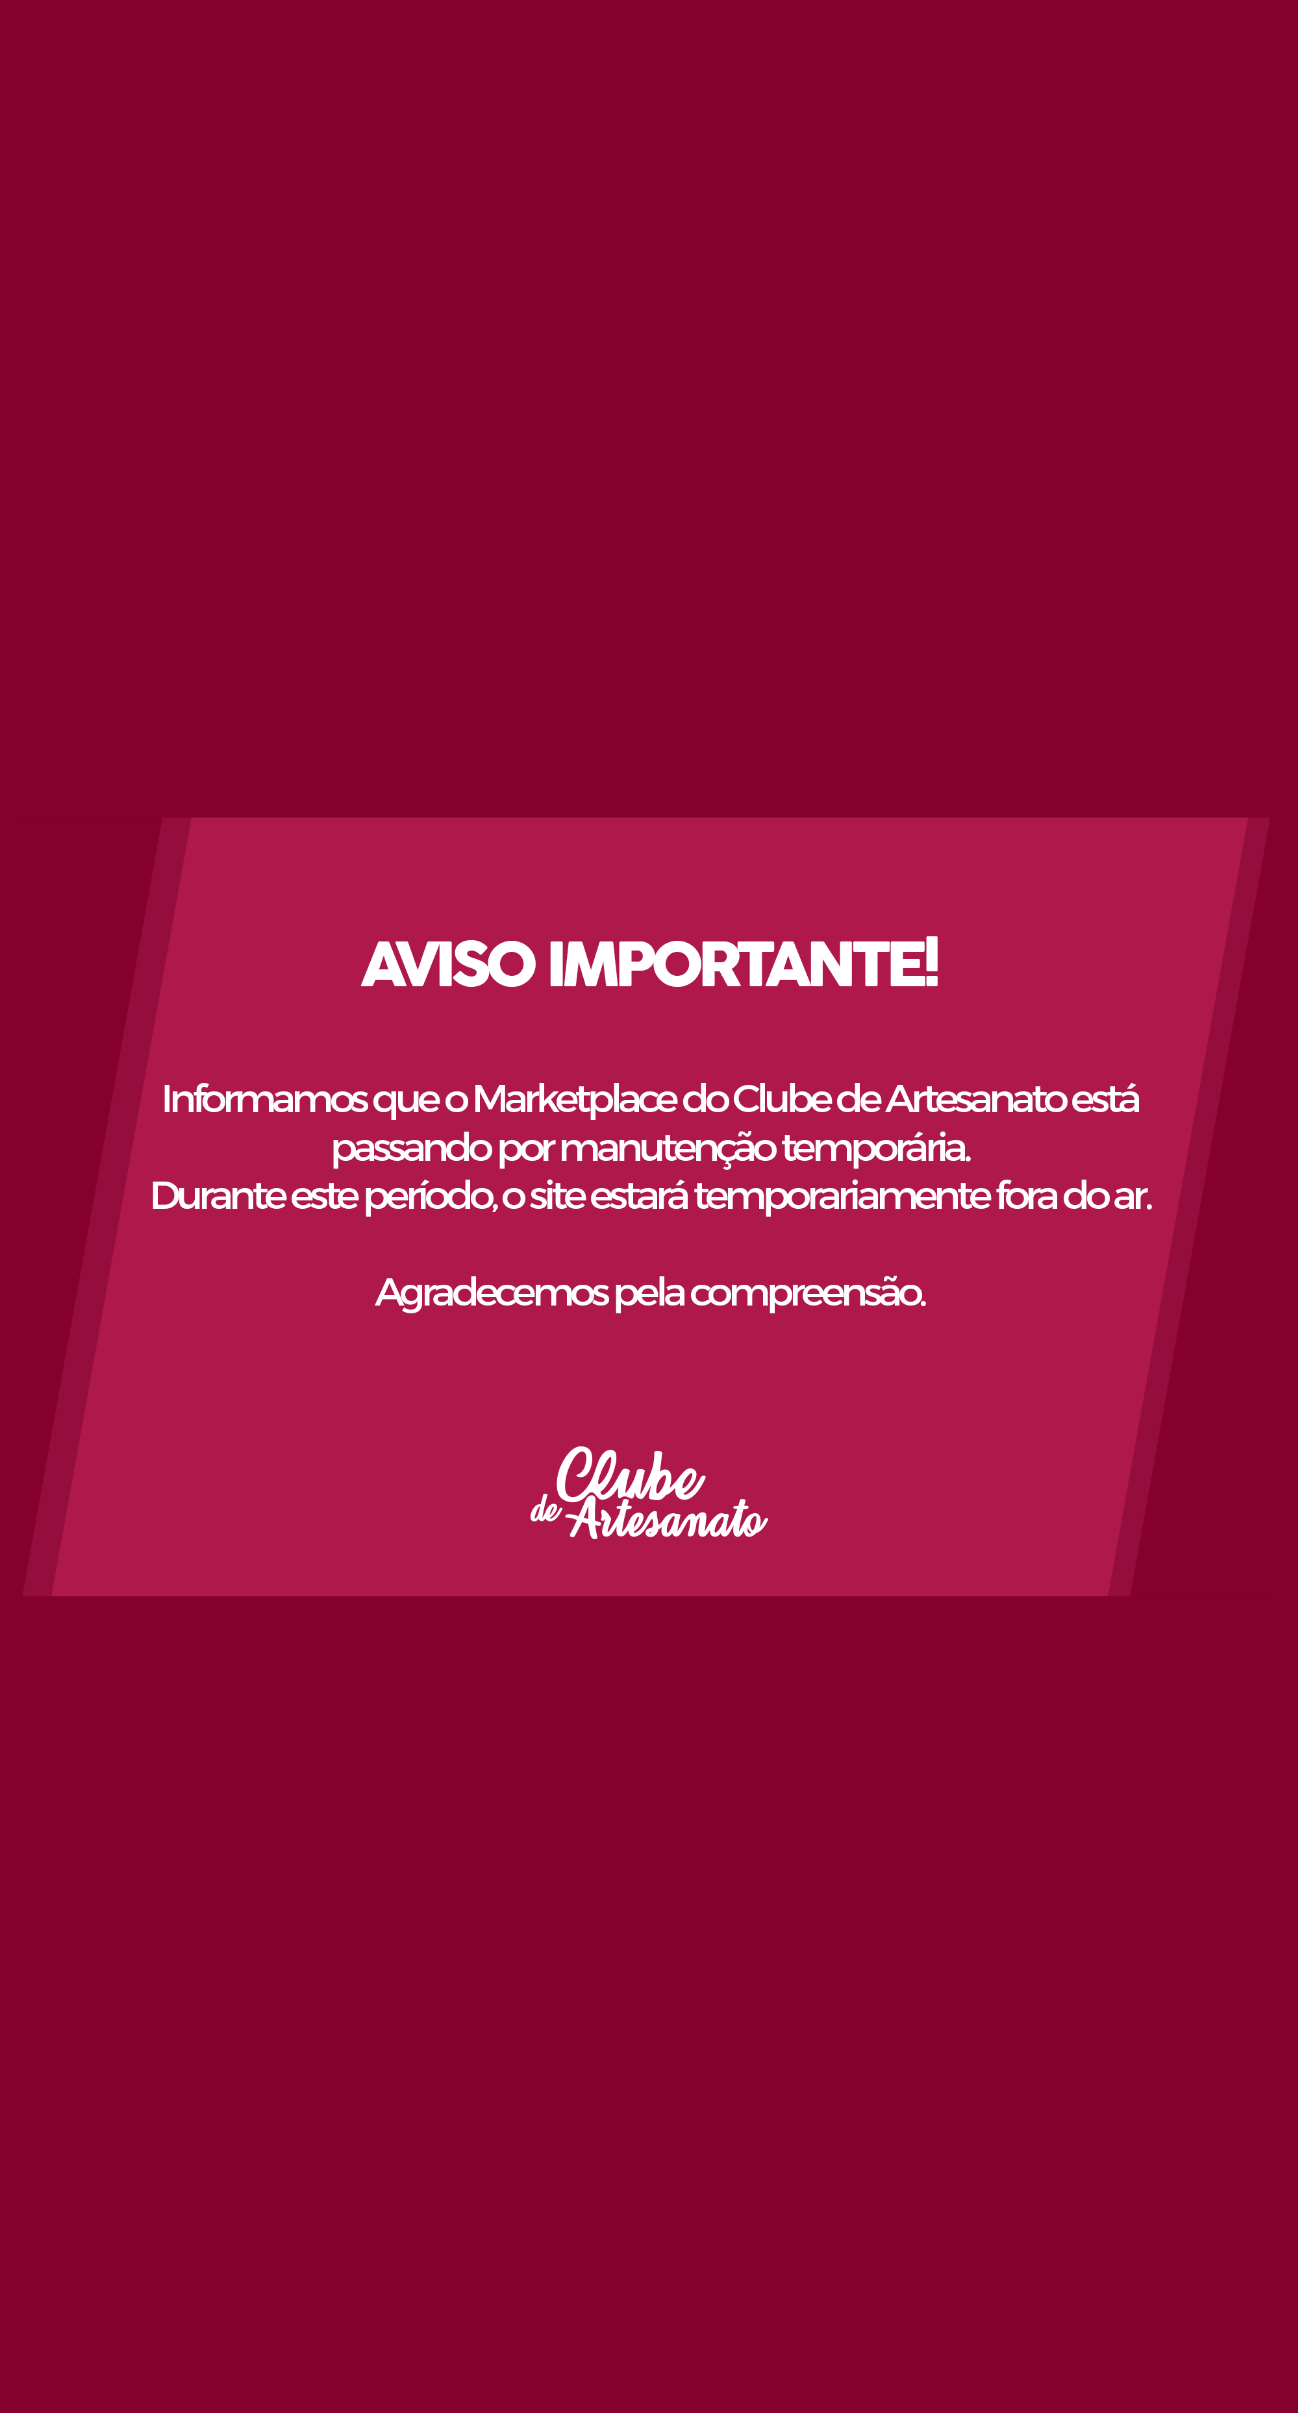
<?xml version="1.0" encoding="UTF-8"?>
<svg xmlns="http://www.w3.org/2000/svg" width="1298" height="2413">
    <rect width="100%" height="100%" fill="#83012C"/>
    <image x="22" y="817" width="1248" height="780" href="img_01.png"/>
</svg>
